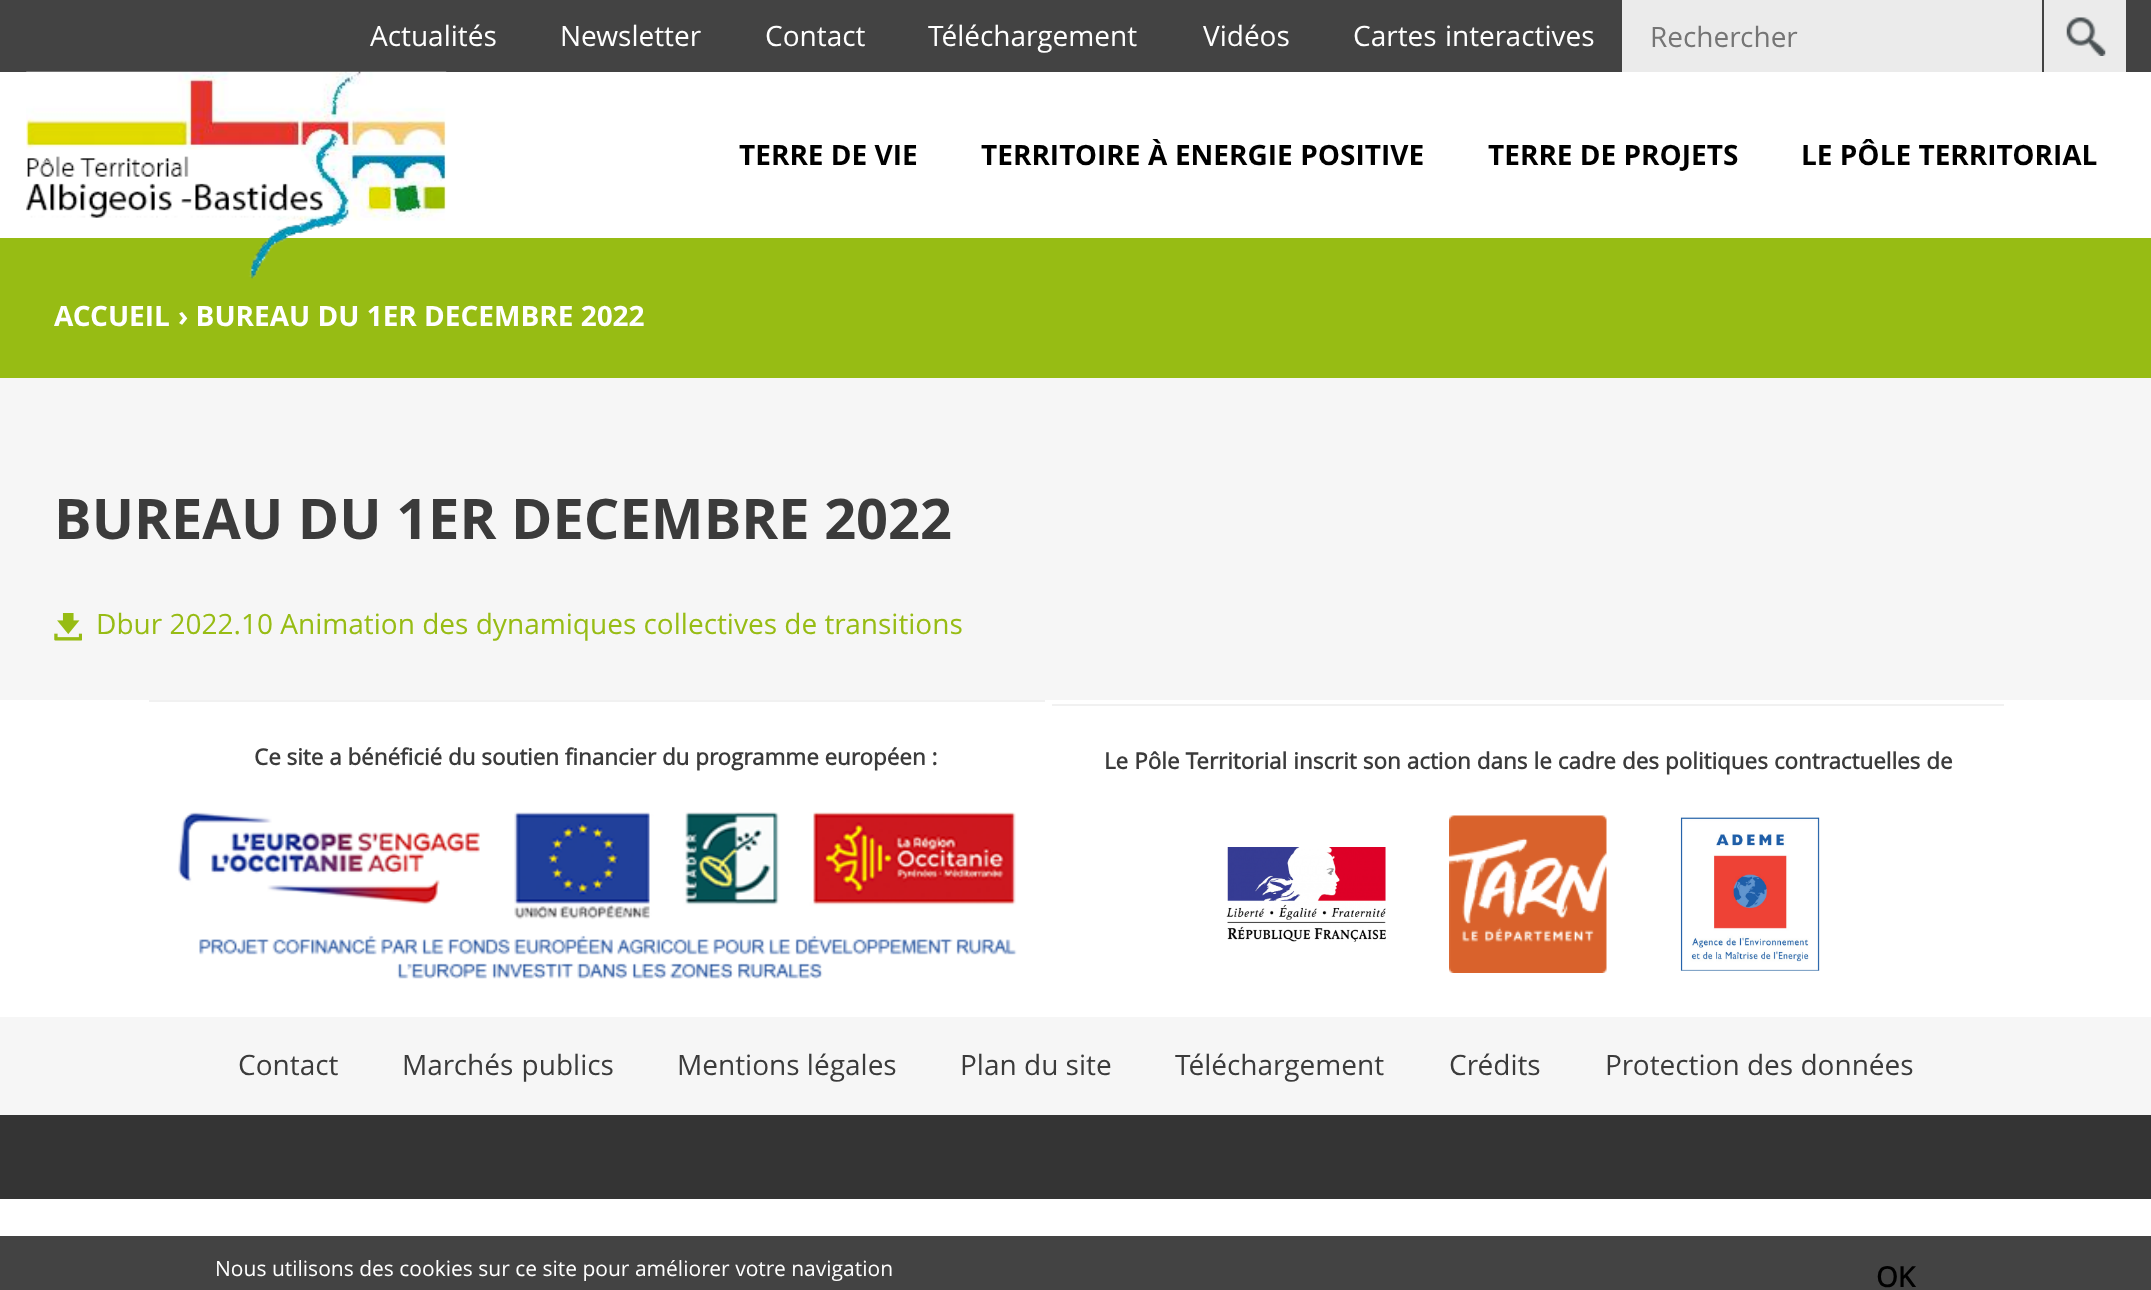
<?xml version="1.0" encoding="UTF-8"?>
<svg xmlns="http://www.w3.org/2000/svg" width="2151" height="1290">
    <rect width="100%" height="100%" fill="#FFFFFF"/>
    <rect x="0" y="378" width="2151" height="322" fill="#F6F6F6"/>
    <rect x="0" y="0" width="2151" height="72" fill="#434343"/>
    <text x="370" y="46" font-family="Open Sans" font-size="28" fill="#FFFFFF">Actualités</text>
    <text x="560" y="46" font-family="Open Sans" font-size="28" fill="#FFFFFF">Newsletter</text>
    <text x="765" y="46" font-family="Open Sans" font-size="28" fill="#FFFFFF">Contact</text>
    <text x="928" y="46" font-family="Open Sans" font-size="28" fill="#FFFFFF">Téléchargement</text>
    <text x="1203" y="46" font-family="Open Sans" font-size="28" fill="#FFFFFF">Vidéos</text>
    <text x="1353" y="46" word-spacing="1" font-family="Open Sans" font-size="28" fill="#FFFFFF">Cartes interactives</text>
    <rect x="1622" y="0" width="420" height="72" fill="#EBEBEB"/>
    <text x="1650" y="47" font-family="Open Sans" font-size="28" fill="#757575">Rechercher</text>
    <rect x="2044" y="0" width="82" height="72" fill="#EBEBEB"/>
    <image x="2066" y="17" width="40" height="39" href="img_01.png"/>
    <rect x="0" y="238" width="2151" height="140" fill="#97BC14"/>
    <image x="26" y="71" width="421" height="208" href="img_02.png"/>
    <text x="739" y="165" font-family="Open Sans" font-size="28" font-weight="700" fill="#000000">TERRE DE VIE</text>
    <text x="981" y="165" word-spacing="0.25" font-family="Open Sans" font-size="28" font-weight="700" fill="#000000">TERRITOIRE À ENERGIE POSITIVE</text>
    <text x="1488" y="165" font-family="Open Sans" font-size="28" font-weight="700" fill="#000000">TERRE DE PROJETS</text>
    <text x="1801" y="165" font-family="Open Sans" font-size="28" font-weight="700" fill="#000000">LE PÔLE TERRITORIAL</text>
    <text x="54" y="326" font-family="Open Sans" font-size="28" font-weight="700" fill="#FFFFFF">ACCUEIL</text>
    <text x="178" y="326" font-family="Open Sans" font-size="28" font-weight="700" fill="#FFFFFF">› BUREAU DU 1ER DECEMBRE 2022</text>
    <text x="54" y="539" font-family="Open Sans" font-size="56" font-weight="700" fill="#3B3B3B">BUREAU DU 1ER DECEMBRE 2022</text>
    <image x="54" y="613" width="28" height="28" href="img_03.png"/>
    <text x="96" y="634" font-family="Open Sans" font-size="28" fill="#97BC14">Dbur 2022.10 Animation des dynamiques collectives de transitions</text>
    <rect x="149" y="700" width="896" height="2" fill="#F1F1F1"/>
    <text x="254" y="765" font-family="'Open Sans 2'" font-size="22.4" font-weight="700" fill="#3B3B3B">Ce site a bénéficié du soutien financier du programme européen :</text>
    <image x="178" y="812" width="839" height="167" href="img_04.png"/>
    <rect x="1052" y="704" width="952" height="2" fill="#F1F1F1"/>
    <text x="1104" y="769" word-spacing="0.25" font-family="'Open Sans 2'" font-size="22.4" font-weight="700" fill="#3B3B3B">Le Pôle Territorial inscrit son action dans le cadre des politiques contractuelles de</text>
    <image x="1226" y="847" width="160" height="95" href="img_05.png"/>
    <image x="1449" y="815" width="158" height="158" href="img_06.png"/>
    <image x="1680" y="817" width="140" height="154" href="img_07.png"/>
    <rect x="0" y="1017" width="2151" height="98" fill="#F6F6F6"/>
    <text x="238" y="1075" font-family="Open Sans" font-size="28" fill="#3B3B3B">Contact</text>
    <text x="402" y="1075" word-spacing="1" font-family="Open Sans" font-size="28" fill="#3B3B3B">Marchés publics</text>
    <text x="677" y="1075" font-family="Open Sans" font-size="28" fill="#3B3B3B">Mentions légales</text>
    <text x="960" y="1075" font-family="Open Sans" font-size="28" fill="#3B3B3B">Plan du site</text>
    <text x="1175" y="1075" font-family="Open Sans" font-size="28" fill="#3B3B3B">Téléchargement</text>
    <text x="1449" y="1075" font-family="Open Sans" font-size="28" fill="#3B3B3B">Crédits</text>
    <text x="1605" y="1075" font-family="Open Sans" font-size="28" fill="#3B3B3B">Protection des données</text>
    <rect x="0" y="1115" width="2151" height="84" fill="#343434"/>
    <rect x="0" y="1236" width="2151" height="54" fill="#434343"/>
    <text x="215" y="1276" font-family="Open Sans" font-size="21" fill="#FFFFFF">Nous utilisons des cookies sur ce site pour améliorer votre navigation</text>
    <text x="1876" y="1287" font-family="'Open Sans 2'" font-size="28" font-weight="700" fill="#000000">OK</text>
</svg>
